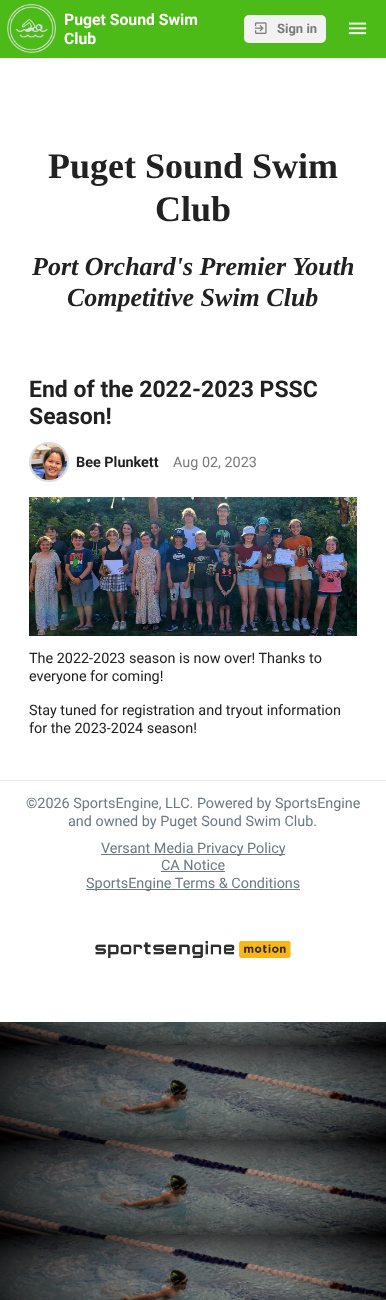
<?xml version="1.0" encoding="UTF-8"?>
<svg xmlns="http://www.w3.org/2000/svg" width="386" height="1300">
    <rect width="100%" height="100%" fill="#FFFFFF"/>
    <image x="0" y="1022" width="386" height="278" href="img_01.png"/>
    <rect x="0" y="0" width="386" height="58" fill="#4CBB17"/>
    <image x="7" y="4" width="49" height="49" href="img_02.png"/>
    <text font-family="Roboto" font-size="15.75" font-weight="700" fill="#FFFFFF">
        <tspan x="64" y="25">Puget Sound Swim</tspan>
        <tspan x="64" y="44">Club</tspan>
    </text>
    <rect x="244" y="15" width="82" height="28" rx="5" fill="#F2F2F2"/>
    <image x="254" y="22" width="13" height="12" href="img_03.png"/>
    <text x="277" y="33" font-family="Roboto" font-size="13" font-weight="700" fill="#7A7A7A">Sign in</text>
    <image x="348" y="22" width="19" height="13" href="img_04.png"/>
    <text x="48" y="178" font-family="Liberation Serif" font-size="36" font-weight="700" fill="#212121">Puget Sound Swim</text>
    <text x="155" y="221" font-family="Liberation Serif" font-size="36" font-weight="700" fill="#212121">Club</text>
    <text x="32" y="275" font-family="Liberation Serif" font-size="26" font-weight="700" font-style="italic" fill="#212121">Port Orchard's Premier Youth</text>
    <text x="67" y="306" font-family="Liberation Serif" font-size="26" font-weight="700" font-style="italic" fill="#212121">Competitive Swim Club</text>
    <text font-family="Roboto" font-size="23" font-weight="700" fill="#212121">
        <tspan x="29" y="397">End of the 2022-2023 PSSC</tspan>
        <tspan x="29" y="424">Season!</tspan>
    </text>
    <circle cx="49" cy="462" r="19" fill="none" stroke="#DDDDDD" stroke-width="2"/>
    <image x="31" y="444" width="36" height="36" href="img_05.png"/>
    <text x="76" y="467" font-family="Roboto" font-size="14.4" font-weight="700" fill="#212121">Bee Plunkett</text>
    <text x="173" y="467" font-family="Roboto" font-size="14.4" fill="#7A7A7A">Aug 02, 2023</text>
    <image x="29" y="497" width="328" height="139" href="img_06.png"/>
    <text font-family="Roboto" font-size="14.4" fill="#212121">
        <tspan x="29" y="663">The 2022-2023 season is now over! Thanks to</tspan>
        <tspan x="29" y="681">everyone for coming!</tspan>
    </text>
    <text font-family="Roboto" font-size="14.4" fill="#212121">
        <tspan x="29" y="715">Stay tuned for registration and tryout information</tspan>
        <tspan x="29" y="733">for the 2023-2024 season!</tspan>
    </text>
    <rect x="0" y="780" width="386" height="1" fill="#E7E7E7"/>
    <text x="26" y="808" font-family="Roboto" font-size="14.4" fill="#6B7982">©2026 SportsEngine, LLC. Powered by SportsEngine</text>
    <text x="68" y="826" font-family="Roboto" font-size="14.4" fill="#6B7982">and owned by Puget Sound Swim Club.</text>
    <rect x="101" y="854" width="184" height="1" fill="#6B7982"/>
    <text x="101" y="853" font-family="Roboto" font-size="14.4" fill="#6B7982">Versant Media Privacy Policy</text>
    <text x="161" y="870" font-family="Roboto" font-size="14.4" fill="#6B7982">CA Notice</text>
    <rect x="161" y="871" width="64" height="1" fill="#6B7982"/>
    <rect x="86" y="889" width="214" height="1" fill="#6B7982"/>
    <text x="86" y="888" font-family="Roboto" font-size="14.4" fill="#6B7982">SportsEngine Terms &amp; Conditions</text>
    <image x="95" y="941" width="196" height="17" href="img_07.png"/>
</svg>
